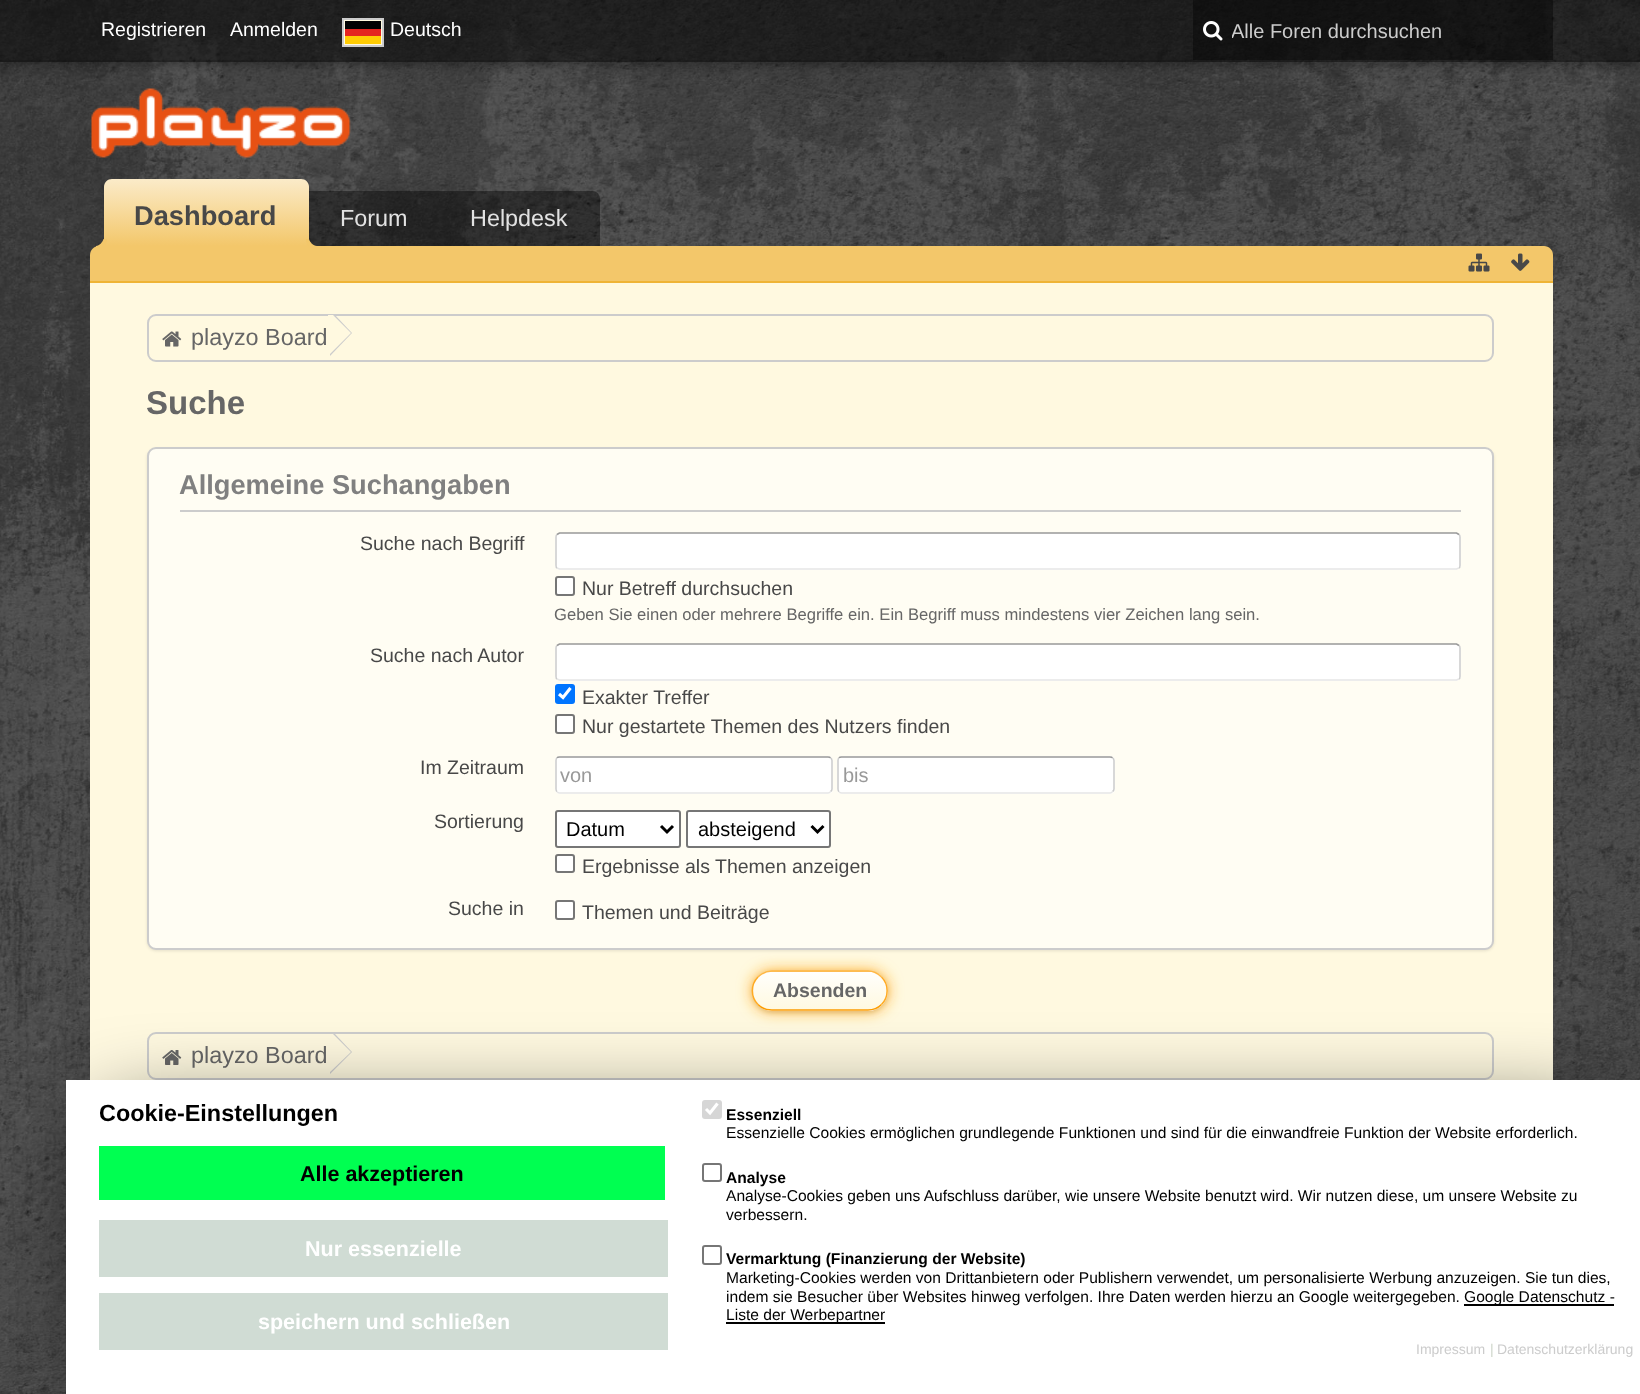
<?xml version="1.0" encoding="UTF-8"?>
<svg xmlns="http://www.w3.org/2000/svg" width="1640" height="1394">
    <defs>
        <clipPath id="clip1"><path d="M 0 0 H 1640 V 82 H 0 Z M 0 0 H 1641 V 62 H 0 Z" clip-rule="evenodd"/></clipPath>
        <filter id="blur1" x="-50%" y="-200%" width="200%" height="500%"><feGaussianBlur stdDeviation="5"/></filter>
        <clipPath id="clip2"><rect x="1232" y="20" width="283" height="22"/></clipPath>
        <linearGradient id="g1" gradientUnits="userSpaceOnUse" x1="206" y1="179" x2="206" y2="246"><stop offset="0" stop-color="#FBEBC9"/><stop offset="1" stop-color="#F3C76A"/></linearGradient>
        <filter id="blur2" x="-50%" y="-200%" width="200%" height="500%"><feGaussianBlur stdDeviation="1.5"/></filter>
        <filter id="blur3" x="-50%" y="-200%" width="200%" height="500%"><feGaussianBlur stdDeviation="7.5"/></filter>
        <filter id="blur4" x="-50%" y="-200%" width="200%" height="500%"><feGaussianBlur stdDeviation="2"/></filter>
        <clipPath id="clip3"><rect x="752" y="971" width="136" height="40" rx="20"/></clipPath>
        <linearGradient id="g2" gradientUnits="userSpaceOnUse" x1="820" y1="972" x2="820" y2="1010"><stop offset="0" stop-color="#FFFFFF"/><stop offset="0.08" stop-color="#FFFEFA"/><stop offset="1" stop-color="#FFF9E0"/></linearGradient>
        <linearGradient id="g3" gradientUnits="userSpaceOnUse" x1="820" y1="1010" x2="820" y2="1047"><stop offset="0" stop-color="#FFFFFF"/><stop offset="0.08" stop-color="#FFFEFA"/><stop offset="1" stop-color="#FFF9E0"/></linearGradient>
        <filter id="blur5" x="-50%" y="-200%" width="200%" height="500%"><feGaussianBlur stdDeviation="45"/></filter>
    </defs>
    <rect width="100%" height="100%" fill="#FFFFFF"/>
    <image x="0" y="0" width="1640" height="1394" href="img_01.png"/>
    <g clip-path="url(#clip1)">
        <rect x="0" y="5" width="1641" height="61" fill="#000000" fill-opacity="0.3" filter="url(#blur1)"/>
    </g>
    <rect x="0" y="0" width="1640" height="62" fill="#000000" fill-opacity="0.5"/>
    <rect x="0" y="60" width="1640" height="2" fill="#000000" fill-opacity="0.1"/>
    <text x="101" y="36" font-family="Liberation Sans" font-size="19.5" fill="#FFFFFF">Registrieren</text>
    <text x="230" y="36" font-family="Liberation Sans" font-size="19.5" fill="#FFFFFF">Anmelden</text>
    <rect x="343" y="19" width="40" height="27" fill="#FFF9E0" stroke="#CCCCCC" stroke-width="2"/>
    <rect x="345" y="21" width="36" height="8" fill="#010202"/>
    <rect x="345" y="29" width="36" height="7" fill="#E52420"/>
    <rect x="345" y="36" width="36" height="8" fill="#FFCC04"/>
    <text x="390" y="36" font-family="Liberation Sans" font-size="19.5" fill="#FFFFFF">Deutsch</text>
    <rect x="1193" y="0" width="360" height="60" fill="#000000" fill-opacity="0.4"/>
    <image x="1203" y="21" width="20" height="20" href="img_02.png"/>
    <g clip-path="url(#clip2)">
        <text x="1231" y="38" font-family="Liberation Sans" font-size="20" fill="#CCCCCC">Alle Foren durchsuchen</text>
    </g>
    <image x="91" y="88" width="260" height="70" href="img_03.png"/>
    <path d="M 112 191 H 592 C 596.5 191 600 194.5 600 199 V 246 H 104 V 199 C 104 194.5 107.5 191 112 191 Z" fill="#000000" fill-opacity="0.4"/>
    <path d="M 112 179 H 301 C 305.5 179 309 182.5 309 187 V 246 H 104 V 187 C 104 182.5 107.5 179 112 179 Z" fill="url(#g1)"/>
    <text x="134" y="225" font-family="Liberation Sans" font-size="27.25" font-weight="700" fill="#484848">Dashboard</text>
    <path d="M 99 246 H 1544 C 1549 246 1553 250 1553 255 V 282 H 90 V 255 C 90 250 94 246 99 246 Z" fill="#F3C76A"/>
    <path d="M 96 246 V 249 C 102.5 249 107 246.5 107 239 H 103.5 C 102.5 242.5 99.5 245.5 96 246 Z" fill="#F3C76A"/>
    <path d="M 306 239 C 306 246.5 310.5 249 317 249 V 246 C 313 245.5 310 242.5 309 239 Z" fill="#F3C76A"/>
    <text x="340" y="226" font-family="Liberation Sans" font-size="23.4" fill="#E2E2E2">Forum</text>
    <text x="470" y="226" font-family="Liberation Sans" font-size="23.4" fill="#E2E2E2">Helpdesk</text>
    <rect x="90" y="281" width="1463" height="2" fill="#EFB436"/>
    <image x="1468" y="253" width="22" height="19" href="img_04.png"/>
    <image x="1511" y="253" width="19" height="18" href="img_05.png"/>
    <rect x="90" y="283" width="1463" height="797" fill="#FFF9E0"/>
    <rect x="148" y="315" width="1345" height="46" rx="8" fill="none" stroke="#CCCCCC" stroke-width="2"/>
    <image x="162" y="331" width="20" height="16" href="img_06.png"/>
    <text x="191" y="345" font-family="Liberation Sans" font-size="23.4" fill="#666666">playzo Board</text>
    <path d="M 330 356 L 352 333 L 335 315 H 330 Z" fill="#CCCCCC"/>
    <path d="M 328 356 L 351 333 L 333 315 H 328 Z" fill="#FFF9E0"/>
    <text x="146" y="414" font-family="Liberation Sans" font-size="33" font-weight="700" fill="#666666">Suche</text>
    <rect x="147" y="449" width="1347" height="502" rx="9" fill="#000000" fill-opacity="0.1" filter="url(#blur2)"/>
    <rect x="148" y="448" width="1345" height="501" rx="8" fill="#FFFDF3" stroke="#CCCCCC" stroke-width="2"/>
    <rect x="180" y="510" width="1281" height="2" fill="#CCCCCC"/>
    <text x="179" y="494" font-family="Liberation Sans" font-size="27.25" font-weight="700" fill="#808080">Allgemeine Suchangaben</text>
    <text x="360" y="550" font-family="Liberation Sans" font-size="19.5" fill="#484848">Suche nach Begriff</text>
    <rect x="555" y="533" width="906" height="37" rx="5" fill="#FFFFFF"/>
    <path d="M 557 534.5 L 559.5 533 H 1456.5 L 1459 534.5" fill="none" stroke="#999999" stroke-width="1.5"/>
    <path d="M 1459 534.5 C 1460 535 1460 536 1460 537 V 565.5 C 1460 566.5 1460 567.5 1459 568" fill="none" stroke="#CCCCCC" stroke-width="1.5"/>
    <path d="M 1459 568 L 1456.5 569 H 559.5 L 557 568" fill="none" stroke="#E6E6E6" stroke-width="1.5"/>
    <path d="M 557 568 C 556 567.5 556 566.5 556 565.5 V 537 C 556 536 556 535 557 534.5" fill="none" stroke="#CCCCCC" stroke-width="1.5"/>
    <rect x="556" y="577" width="18" height="18" rx="2" fill="#FFFFFF" stroke="#767676" stroke-width="2"/>
    <text x="582" y="595" font-family="Liberation Sans" font-size="19.5" fill="#484848">Nur Betreff durchsuchen</text>
    <text x="554" y="620" font-family="Liberation Sans" font-size="16.6" fill="#666666">Geben Sie einen oder mehrere Begriffe ein. Ein Begriff muss mindestens vier Zeichen lang sein.</text>
    <text x="370" y="662" font-family="Liberation Sans" font-size="19.5" fill="#484848">Suche nach Autor</text>
    <rect x="555" y="644" width="906" height="37" rx="5" fill="#FFFFFF"/>
    <path d="M 557 645.5 L 559.5 644 H 1456.5 L 1459 645.5" fill="none" stroke="#999999" stroke-width="1.5"/>
    <path d="M 1459 645.5 C 1460 646 1460 647 1460 648 V 676.5 C 1460 677.5 1460 678.5 1459 679" fill="none" stroke="#CCCCCC" stroke-width="1.5"/>
    <path d="M 1459 679 L 1456.5 680 H 559.5 L 557 679" fill="none" stroke="#E6E6E6" stroke-width="1.5"/>
    <path d="M 557 679 C 556 678.5 556 677.5 556 676.5 V 648 C 556 647 556 646 557 645.5" fill="none" stroke="#CCCCCC" stroke-width="1.5"/>
    <rect x="555" y="684" width="20" height="20" rx="3" fill="#0075FF"/>
    <path d="M 559 694 L 563 697.5 L 570.5 688" fill="none" stroke="#FFFFFF" stroke-width="3.1"/>
    <text x="582" y="704" font-family="Liberation Sans" font-size="19.5" fill="#484848">Exakter Treffer</text>
    <rect x="556" y="715" width="18" height="18" rx="2" fill="#FFFFFF" stroke="#767676" stroke-width="2"/>
    <text x="582" y="733" font-family="Liberation Sans" font-size="19.5" fill="#484848">Nur gestartete Themen des Nutzers finden</text>
    <text x="420" y="774" font-family="Liberation Sans" font-size="19.5" fill="#484848">Im Zeitraum</text>
    <rect x="555" y="756" width="278" height="38" rx="5" fill="#FFFFFF"/>
    <path d="M 557 758 C 557.5 757 558.5 757 559.5 757 H 828 C 829 757 830 757 830.5 758" fill="none" stroke="#999999" stroke-width="1.5"/>
    <path d="M 830.5 758 C 831.5 758.5 832 759.5 832 760.5 V 789 C 832 790 831.5 791 830.5 791.5" fill="none" stroke="#CCCCCC" stroke-width="1.5"/>
    <path d="M 830.5 791.5 C 830 792.5 829 793 828 793 H 559.5 C 558.5 793 557.5 792.5 557 791.5" fill="none" stroke="#E6E6E6" stroke-width="1.5"/>
    <path d="M 557 791.5 C 556 791 556 790 556 789 V 760.5 C 556 759.5 556 758.5 557 758" fill="none" stroke="#CCCCCC" stroke-width="1.5"/>
    <text x="560" y="782" font-family="Liberation Sans" font-size="20" fill="#999999">von</text>
    <rect x="837" y="756" width="278" height="38" rx="5" fill="#FFFFFF"/>
    <path d="M 839 758 C 839.5 757 840.5 757 841.5 757 H 1110 C 1111 757 1112 757 1112.5 758" fill="none" stroke="#999999" stroke-width="1.5"/>
    <path d="M 1112.5 758 C 1113.5 758.5 1114 759.5 1114 760.5 V 789 C 1114 790 1113.5 791 1112.5 791.5" fill="none" stroke="#CCCCCC" stroke-width="1.5"/>
    <path d="M 1112.5 791.5 C 1112 792.5 1111 793 1110 793 H 841.5 C 840.5 793 839.5 792.5 839 791.5" fill="none" stroke="#E6E6E6" stroke-width="1.5"/>
    <path d="M 839 791.5 C 838 791 838 790 838 789 V 760.5 C 838 759.5 838 758.5 839 758" fill="none" stroke="#CCCCCC" stroke-width="1.5"/>
    <text x="843" y="782" font-family="Liberation Sans" font-size="20" fill="#999999">bis</text>
    <text x="434" y="828" font-family="Liberation Sans" font-size="19.5" fill="#484848">Sortierung</text>
    <rect x="556" y="811" width="124" height="36" rx="2" fill="#FFFFFF" stroke="#767676" stroke-width="2"/>
    <path d="M 661 826 L 667 832 L 673 826" fill="none" stroke="#000000" stroke-width="3"/>
    <text x="566" y="836" font-family="Liberation Sans" font-size="20" fill="#000000">Datum</text>
    <rect x="687" y="811" width="143" height="36" rx="2" fill="#FFFFFF" stroke="#767676" stroke-width="2"/>
    <path d="M 811.5 826 L 817.5 832 L 823.5 826" fill="none" stroke="#000000" stroke-width="3"/>
    <text x="698" y="836" font-family="Liberation Sans" font-size="20" fill="#000000">absteigend</text>
    <rect x="556" y="855" width="18" height="17" rx="2" fill="#FFFFFF" stroke="#767676" stroke-width="2"/>
    <text x="582" y="873" font-family="Liberation Sans" font-size="19.5" fill="#484848">Ergebnisse als Themen anzeigen</text>
    <text x="448" y="915" font-family="Liberation Sans" font-size="19.5" fill="#484848">Suche in</text>
    <rect x="556" y="901" width="18" height="18" rx="2" fill="#FFFFFF" stroke="#767676" stroke-width="2"/>
    <text x="582" y="919" font-family="Liberation Sans" font-size="19.5" fill="#484848">Themen und Beiträge</text>
    <rect x="752" y="971" width="136" height="40" rx="20" fill="#FFAA22" filter="url(#blur3)"/>
    <rect x="752" y="972" width="136" height="41" rx="20.5" fill="#000000" fill-opacity="0.1" filter="url(#blur4)"/>
    <g clip-path="url(#clip3)">
        <rect x="752" y="972" width="136" height="38" fill="url(#g2)"/>
        <rect x="766" y="1010" width="108" height="1" fill="url(#g3)"/>
    </g>
    <path d="M 758 977 C 761.5 973.5 766.5 971 772 971 H 868 C 873 971 878 973.5 881.5 977" fill="none" stroke="#FFB846" stroke-width="1.5"/>
    <path d="M 881.5 977 C 889 984.5 889 997 881.5 1004.5" fill="none" stroke="#FFAA22" stroke-width="1.5"/>
    <path d="M 881.5 1004.5 C 878 1008 873 1010 868 1010 H 772 C 766.5 1010 761.5 1008 758 1004.5" fill="none" stroke="#FD9C00" stroke-width="1.5"/>
    <path d="M 758 1004.5 C 750.5 997 750.5 984.5 758 977" fill="none" stroke="#FFAA22" stroke-width="1.5"/>
    <text x="773" y="997" font-family="Liberation Sans" font-size="19.5" font-weight="700" fill="#666666">Absenden</text>
    <rect x="148" y="1033" width="1345" height="46" rx="8" fill="none" stroke="#CCCCCC" stroke-width="2"/>
    <image x="162" y="1050" width="20" height="15" href="img_07.png"/>
    <text x="191" y="1063" font-family="Liberation Sans" font-size="23.4" fill="#666666">playzo Board</text>
    <path d="M 330 1074 L 352 1052 L 335 1034 H 330 Z" fill="#CCCCCC"/>
    <path d="M 328 1074 L 351 1052 L 333 1034 H 328 Z" fill="#FFF9E0"/>
    <rect x="105" y="1119" width="1497" height="237" fill="#000000" fill-opacity="0.8" filter="url(#blur5)"/>
    <rect x="66" y="1080" width="1574" height="314" fill="#FFFFFF"/>
    <text x="99" y="1121" font-family="Liberation Sans" font-size="23.4" font-weight="700" fill="#000000">Cookie-Einstellungen</text>
    <rect x="99" y="1146" width="566" height="54" fill="#00FF51"/>
    <text x="300" y="1181" font-family="Liberation Sans" font-size="21.5" font-weight="700" fill="#000000">Alle akzeptieren</text>
    <rect x="702" y="1100" width="20" height="19" rx="3" fill="#D6D6D6"/>
    <path d="M 706 1109 L 710 1113 L 717.5 1103.5" fill="none" stroke="#FFFFFF" stroke-width="3.1"/>
    <text x="726" y="1120" font-family="Liberation Sans" font-size="15.6" font-weight="700" fill="#000000">Essenziell</text>
    <text x="726" y="1138" font-family="Liberation Sans" font-size="15.6" fill="#000000">Essenzielle Cookies ermöglichen grundlegende Funktionen und sind für die einwandfreie Funktion der Website erforderlich.</text>
    <rect x="703" y="1164" width="18" height="17" rx="2" fill="none" stroke="#767676" stroke-width="2"/>
    <text x="726" y="1183" font-family="Liberation Sans" font-size="15.6" font-weight="700" fill="#000000">Analyse</text>
    <text font-family="Liberation Sans" font-size="15.6" fill="#000000">
        <tspan x="726" y="1201">Analyse-Cookies geben uns Aufschluss darüber, wie unsere Website benutzt wird. Wir nutzen diese, um unsere Website zu</tspan>
        <tspan x="726" y="1220">verbessern.</tspan>
    </text>
    <rect x="703" y="1246" width="18" height="18" rx="2" fill="none" stroke="#767676" stroke-width="2"/>
    <text x="726" y="1264" font-family="Liberation Sans" font-size="15.6" font-weight="700" fill="#000000">Vermarktung (Finanzierung der Website)</text>
    <text font-family="Liberation Sans" font-size="15.6" fill="#000000">
        <tspan x="726" y="1283">Marketing-Cookies werden von Drittanbietern oder Publishern verwendet, um personalisierte Werbung anzuzeigen. Sie tun dies,</tspan>
        <tspan x="726" y="1302">indem sie Besucher über Websites hinweg verfolgen. Ihre Daten werden hierzu an Google weitergegeben.</tspan>
    </text>
    <rect x="1464" y="1304" width="150" height="2" fill="#000000"/>
    <text x="1464" y="1302" font-family="Liberation Sans" font-size="15.6" fill="#000000">Google Datenschutz -</text>
    <rect x="726" y="1322" width="159" height="2" fill="#000000"/>
    <text x="726" y="1320" font-family="Liberation Sans" font-size="15.6" fill="#000000">Liste der Werbepartner</text>
    <text x="1416" y="1354" font-family="Liberation Sans" font-size="14" fill="#CCCCCC">Impressum</text>
    <text x="1490" y="1354" font-family="Liberation Sans" font-size="14" fill="#CFD6CA">|</text>
    <text x="1497" y="1354" font-family="Liberation Sans" font-size="14" fill="#CCCCCC">Datenschutzerklärung</text>
    <rect x="99" y="1220" width="569" height="57" fill="#D0DCD4"/>
    <text x="305" y="1256" font-family="Liberation Sans" font-size="21.5" font-weight="700" fill="#FFFFFF">Nur essenzielle</text>
    <rect x="99" y="1293" width="569" height="57" fill="#D0DCD4"/>
    <text x="258" y="1329" font-family="Liberation Sans" font-size="21.5" font-weight="700" fill="#FFFFFF">speichern und schließen</text>
</svg>
